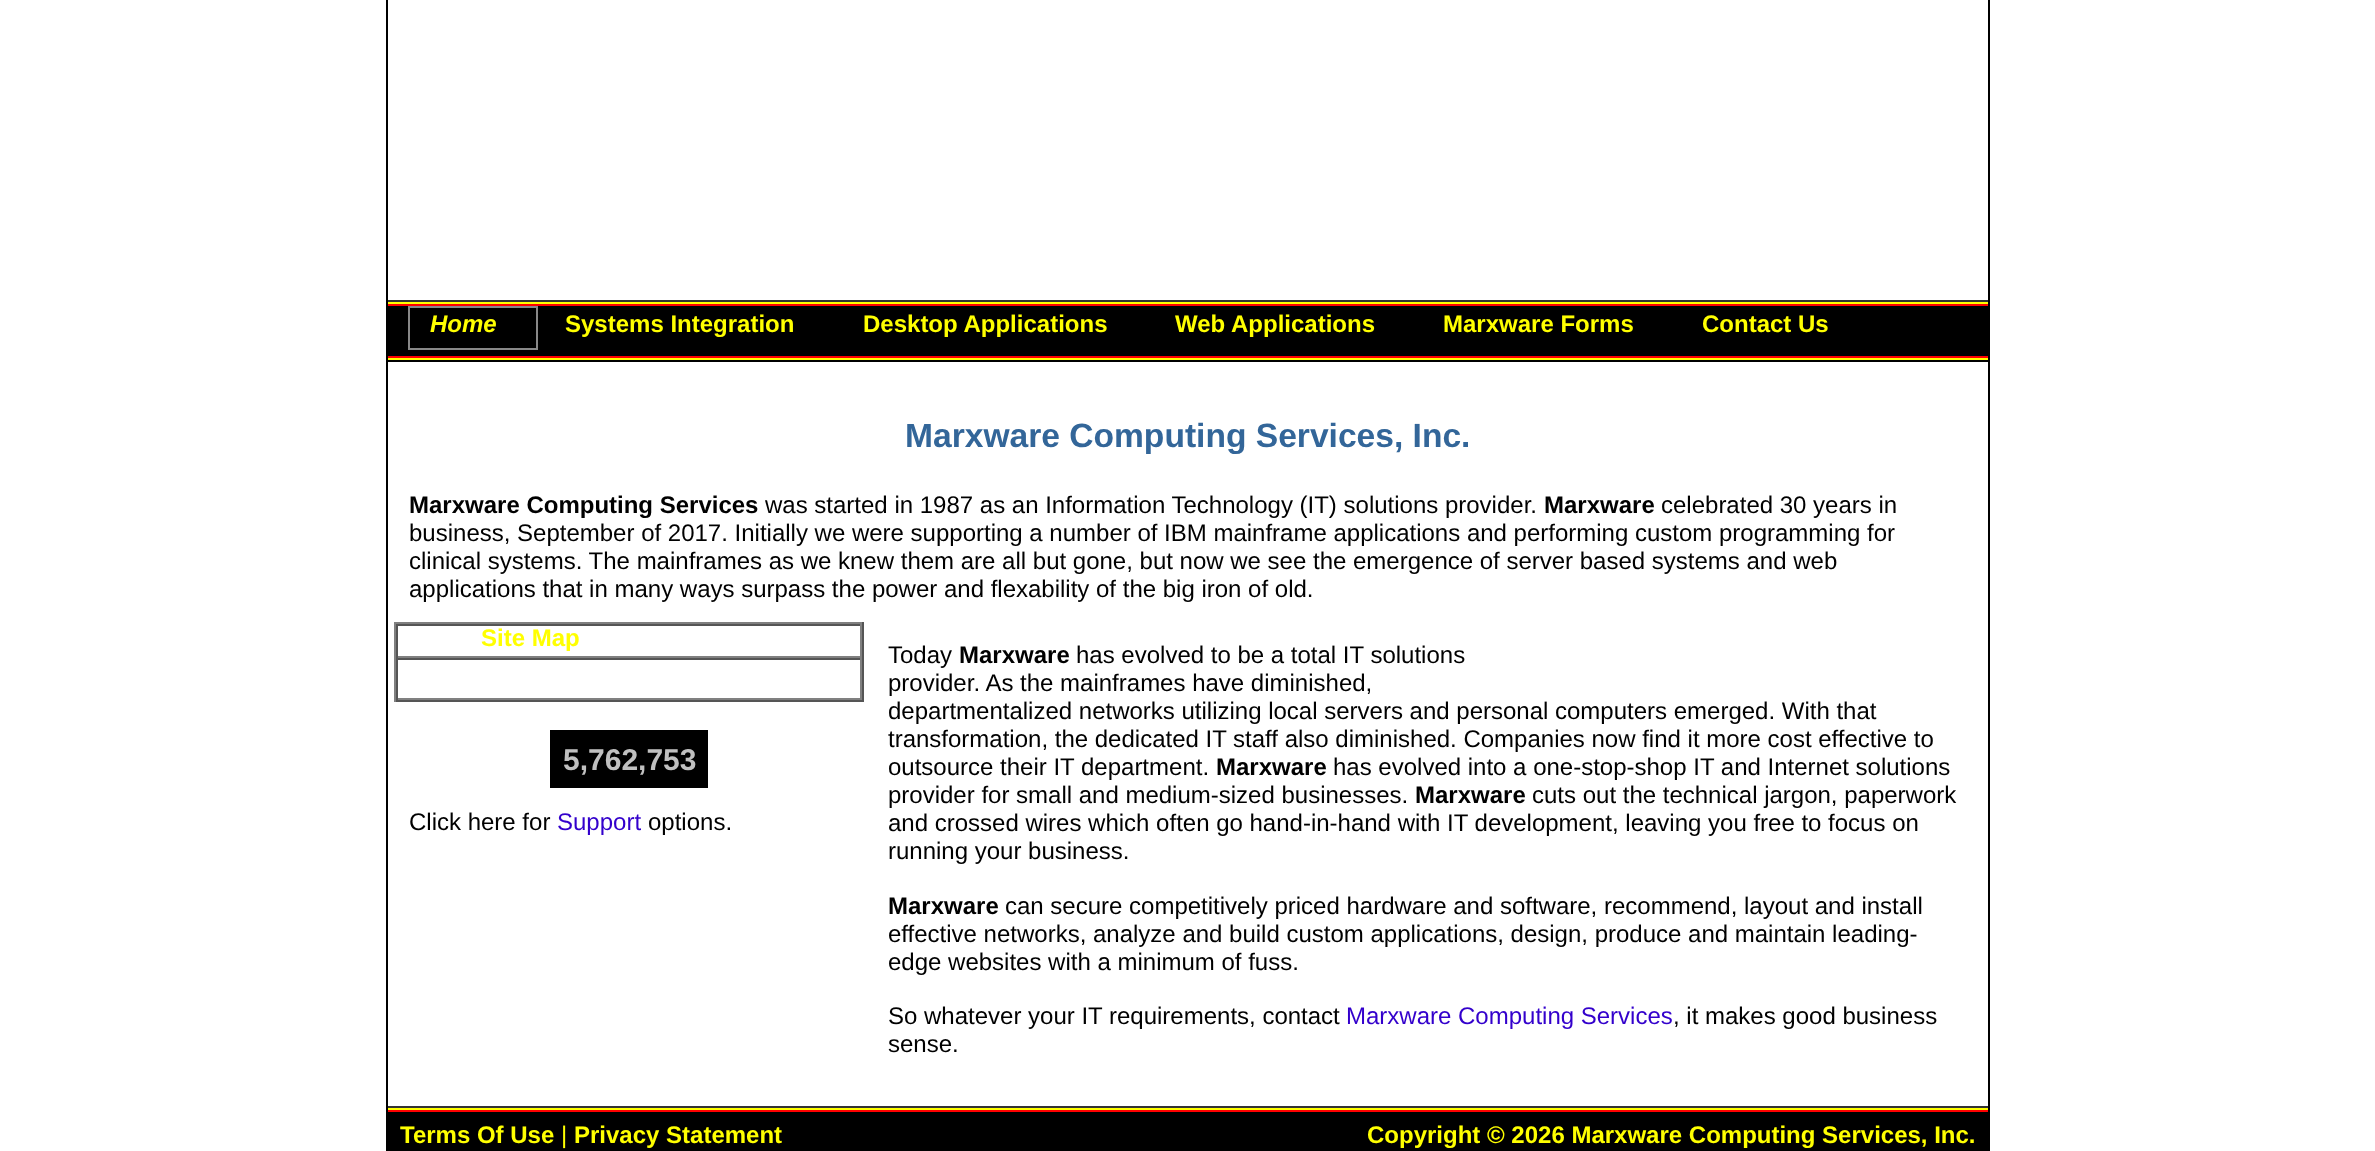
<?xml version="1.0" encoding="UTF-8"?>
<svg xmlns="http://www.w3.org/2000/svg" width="2375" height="1151">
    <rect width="100%" height="100%" fill="#FFFFFF"/>
    <rect x="1988" y="0" width="2" height="1151" fill="#000000"/>
    <rect x="386" y="0" width="2" height="1151" fill="#000000"/>
    <rect x="388" y="300" width="1600" height="2" fill="#333333"/>
    <rect x="388" y="302" width="1600" height="2" fill="#FFFF00"/>
    <rect x="388" y="304" width="1600" height="2" fill="#FF0000"/>
    <rect x="388" y="306" width="1600" height="50" fill="#000000"/>
    <rect x="409" y="307" width="128" height="42" fill="none" stroke="#888888" stroke-width="2"/>
    <text x="430" y="332" font-family="Liberation Sans" font-size="24" font-weight="700" font-style="italic" fill="#FFFF00">Home</text>
    <text x="565" y="332" font-family="Liberation Sans" font-size="24" font-weight="700" fill="#FFFF00">Systems Integration</text>
    <text x="863" y="332" font-family="Liberation Sans" font-size="24" font-weight="700" fill="#FFFF00">Desktop Applications</text>
    <text x="1175" y="332" font-family="Liberation Sans" font-size="24" font-weight="700" fill="#FFFF00">Web Applications</text>
    <text x="1443" y="332" font-family="Liberation Sans" font-size="24" font-weight="700" fill="#FFFF00">Marxware Forms</text>
    <text x="1702" y="332" font-family="Liberation Sans" font-size="24" font-weight="700" fill="#FFFF00">Contact Us</text>
    <rect x="388" y="356" width="1600" height="2" fill="#FF0000"/>
    <rect x="388" y="358" width="1600" height="2" fill="#FFFF00"/>
    <rect x="388" y="360" width="1600" height="2" fill="#000000"/>
    <text x="905" y="447" font-family="Liberation Sans" font-size="33.6" font-weight="700" fill="#336699">Marxware Computing Services, Inc.</text>
    <text x="409" y="513" font-family="Liberation Sans" font-size="24" font-weight="700" fill="#000000">Marxware Computing Services</text>
    <text x="765" y="513" font-family="Liberation Sans" font-size="24" fill="#000000">was started in 1987 as an Information Technology (IT) solutions provider.</text>
    <text x="1544" y="513" font-family="Liberation Sans" font-size="24" font-weight="700" fill="#000000">Marxware</text>
    <text x="1661" y="513" font-family="Liberation Sans" font-size="24" fill="#000000">celebrated 30 years in</text>
    <text font-family="Liberation Sans" font-size="24" fill="#000000">
        <tspan x="409" y="541">business, September of 2017. Initially we were supporting a number of IBM mainframe applications and performing custom programming for</tspan>
        <tspan x="409" y="569">clinical systems. The mainframes as we knew them are all but gone, but now we see the emergence of server based systems and web</tspan>
        <tspan x="409" y="597">applications that in many ways surpass the power and flexability of the big iron of old.</tspan>
    </text>
    <rect x="394" y="622" width="470" height="2" fill="#808080"/>
    <rect x="862" y="622" width="2" height="80" fill="#555555"/>
    <rect x="394" y="700" width="470" height="2" fill="#555555"/>
    <rect x="394" y="622" width="2" height="80" fill="#808080"/>
    <rect x="396" y="624" width="466" height="2" fill="#555555"/>
    <rect x="860" y="624" width="2" height="34" fill="#808080"/>
    <rect x="396" y="656" width="466" height="2" fill="#808080"/>
    <rect x="396" y="624" width="2" height="34" fill="#555555"/>
    <text x="481" y="646" font-family="Liberation Sans" font-size="24" font-weight="700" fill="#FFFF00">Site Map</text>
    <rect x="396" y="658" width="466" height="2" fill="#555555"/>
    <rect x="860" y="658" width="2" height="42" fill="#808080"/>
    <rect x="396" y="698" width="466" height="2" fill="#808080"/>
    <rect x="396" y="658" width="2" height="42" fill="#555555"/>
    <rect x="550" y="730" width="158" height="58" fill="#000000"/>
    <text x="563" y="770" font-family="Liberation Sans" font-size="30" font-weight="700" fill="#C0C0C0">5,762,753</text>
    <text x="409" y="830" font-family="Liberation Sans" font-size="24" fill="#000000">Click here for</text>
    <text x="557" y="830" font-family="Liberation Sans" font-size="24" fill="#3300CC">Support</text>
    <text x="648" y="830" font-family="Liberation Sans" font-size="24" fill="#000000">options.</text>
    <text x="888" y="663" font-family="Liberation Sans" font-size="24" fill="#000000">Today</text>
    <text x="959" y="663" font-family="Liberation Sans" font-size="24" font-weight="700" fill="#000000">Marxware</text>
    <text x="1076" y="663" font-family="Liberation Sans" font-size="24" fill="#000000">has evolved to be a total IT solutions</text>
    <text font-family="Liberation Sans" font-size="24" fill="#000000">
        <tspan x="888" y="691">provider. As the mainframes have diminished,</tspan>
        <tspan x="888" y="719">departmentalized networks utilizing local servers and personal computers emerged. With that</tspan>
        <tspan x="888" y="747">transformation, the dedicated IT staff also diminished. Companies now find it more cost effective to</tspan>
        <tspan x="888" y="775">outsource their IT department.</tspan>
    </text>
    <text x="1216" y="775" font-family="Liberation Sans" font-size="24" font-weight="700" fill="#000000">Marxware</text>
    <text x="1333" y="775" font-family="Liberation Sans" font-size="24" fill="#000000">has evolved into a one-stop-shop IT and Internet solutions</text>
    <text x="888" y="803" font-family="Liberation Sans" font-size="24" fill="#000000">provider for small and medium-sized businesses.</text>
    <text x="1415" y="803" font-family="Liberation Sans" font-size="24" font-weight="700" fill="#000000">Marxware</text>
    <text x="1532" y="803" font-family="Liberation Sans" font-size="24" fill="#000000">cuts out the technical jargon, paperwork</text>
    <text font-family="Liberation Sans" font-size="24" fill="#000000">
        <tspan x="888" y="831">and crossed wires which often go hand-in-hand with IT development, leaving you free to focus on</tspan>
        <tspan x="888" y="859">running your business.</tspan>
    </text>
    <text x="888" y="914" font-family="Liberation Sans" font-size="24" font-weight="700" fill="#000000">Marxware</text>
    <text x="1005" y="914" font-family="Liberation Sans" font-size="24" fill="#000000">can secure competitively priced hardware and software, recommend, layout and install</text>
    <text font-family="Liberation Sans" font-size="24" fill="#000000">
        <tspan x="888" y="942">effective networks, analyze and build custom applications, design, produce and maintain leading-</tspan>
        <tspan x="888" y="970">edge websites with a minimum of fuss.</tspan>
    </text>
    <text x="888" y="1024" font-family="Liberation Sans" font-size="24" fill="#000000">So whatever your IT requirements, contact</text>
    <text x="1346" y="1024" font-family="Liberation Sans" font-size="24" fill="#3300CC">Marxware Computing Services</text>
    <text x="1673" y="1024" font-family="Liberation Sans" font-size="24" fill="#000000">, it makes good business</text>
    <text x="888" y="1052" font-family="Liberation Sans" font-size="24" fill="#000000">sense.</text>
    <rect x="388" y="1106" width="1600" height="2" fill="#333333"/>
    <rect x="388" y="1108" width="1600" height="2" fill="#FFFF00"/>
    <rect x="388" y="1110" width="1600" height="2" fill="#FF0000"/>
    <rect x="388" y="1112" width="1600" height="39" fill="#000000"/>
    <text x="400" y="1143" font-family="Liberation Sans" font-size="24" font-weight="700" fill="#FFFF00">Terms Of Use</text>
    <text x="561" y="1143" font-family="Liberation Sans" font-size="24" fill="#FFFF00">|</text>
    <text x="574" y="1143" font-family="Liberation Sans" font-size="24" font-weight="700" fill="#FFFF00">Privacy Statement</text>
    <text x="1367" y="1143" font-family="Liberation Sans" font-size="24" font-weight="700" fill="#FFFF00">Copyright © 2026 Marxware Computing Services, Inc.</text>
</svg>
